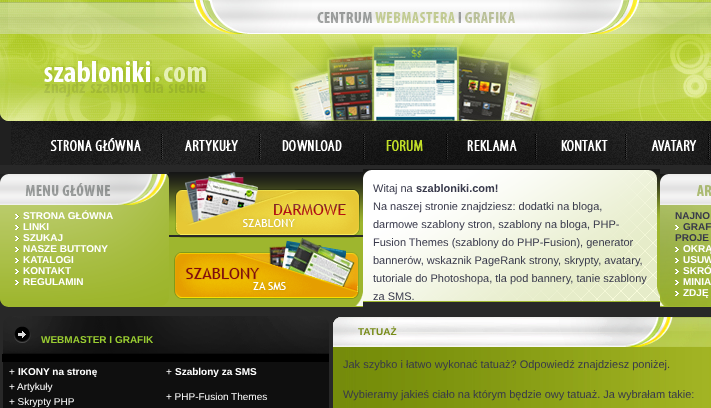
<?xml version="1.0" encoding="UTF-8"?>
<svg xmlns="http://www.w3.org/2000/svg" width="711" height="408">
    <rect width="100%" height="100%" fill="#282828"/>
    <image x="0" y="0" width="244" height="121" href="img_01.png"/>
    <image x="244" y="0" width="344" height="121" href="img_02.png"/>
    <image x="588" y="0" width="123" height="121" href="img_03.png"/>
    <image x="0" y="121" width="163" height="44" href="img_04.png"/>
    <image x="163" y="121" width="98" height="44" href="img_05.png"/>
    <image x="261" y="121" width="104" height="44" href="img_06.png"/>
    <image x="365" y="121" width="83" height="44" href="img_07.png"/>
    <image x="448" y="121" width="89" height="44" href="img_08.png"/>
    <image x="537" y="121" width="90" height="44" href="img_09.png"/>
    <image x="627" y="121" width="84" height="44" href="img_10.png"/>
    <image x="0" y="174" width="169" height="31" href="img_11.png"/>
    <image x="0" y="205" width="169" height="102" href="img_12.png"/>
    <image x="15" y="214" width="5" height="5" href="img_13.png"/>
    <text x="23" y="219" font-family="Liberation Sans" font-size="10" font-weight="700" fill="#FFFFFF">STRONA GŁÓWNA</text>
    <image x="15" y="225" width="5" height="5" href="img_14.png"/>
    <text x="23" y="230" font-family="Liberation Sans" font-size="10" font-weight="700" fill="#FFFFFF">LINKI</text>
    <image x="15" y="236" width="5" height="5" href="img_15.png"/>
    <text x="23" y="241" font-family="Liberation Sans" font-size="10" font-weight="700" fill="#FFFFFF">SZUKAJ</text>
    <image x="15" y="247" width="5" height="5" href="img_16.png"/>
    <text x="23" y="252" font-family="Liberation Sans" font-size="10" font-weight="700" fill="#FFFFFF">NASZE BUTTONY</text>
    <image x="15" y="258" width="5" height="5" href="img_17.png"/>
    <text x="23" y="263" font-family="Liberation Sans" font-size="10" font-weight="700" fill="#FFFFFF">KATALOGI</text>
    <image x="15" y="269" width="5" height="5" href="img_18.png"/>
    <text x="23" y="274" font-family="Liberation Sans" font-size="10" font-weight="700" fill="#FFFFFF">KONTAKT</text>
    <image x="15" y="280" width="5" height="5" href="img_19.png"/>
    <text x="23" y="285" font-family="Liberation Sans" font-size="10" font-weight="700" fill="#FFFFFF">REGULAMIN</text>
    <image x="169" y="172" width="194" height="63" href="img_20.png"/>
    <image x="169" y="237" width="194" height="70" href="img_21.png"/>
    <image x="363" y="169" width="297" height="133" href="img_22.png"/>
    <text x="373" y="192" font-family="Liberation Sans" font-size="11" fill="#38394B">Witaj na</text>
    <text x="416" y="192" font-family="Liberation Sans" font-size="11" font-weight="700" fill="#38394B">szabloniki.com!</text>
    <text font-family="Liberation Sans" font-size="11" fill="#38394B">
        <tspan x="373" y="210">Na naszej stronie znajdziesz: dodatki na bloga,</tspan>
        <tspan x="373" y="228">darmowe szablony stron, szablony na bloga, PHP-</tspan>
        <tspan x="373" y="246">Fusion Themes (szablony do PHP-Fusion), generator</tspan>
        <tspan x="373" y="264">bannerów, wskaznik PageRank strony, skrypty, avatary,</tspan>
        <tspan x="373" y="282">tutoriale do Photoshopa, tla pod bannery, tanie szablony</tspan>
        <tspan x="373" y="300">za SMS.</tspan>
    </text>
    <image x="660" y="174" width="51" height="31" href="img_23.png"/>
    <image x="660" y="205" width="51" height="102" href="img_24.png"/>
    <text x="675" y="219" font-family="Liberation Sans" font-size="10" font-weight="700" fill="#38394B">NAJNO</text>
    <image x="675" y="225" width="5" height="5" href="img_25.png"/>
    <text x="683" y="230" font-family="Liberation Sans" font-size="10" font-weight="700" fill="#38394B">GRAF</text>
    <text x="675" y="241" font-family="Liberation Sans" font-size="10" font-weight="700" fill="#38394B">PROJE</text>
    <image x="675" y="247" width="5" height="5" href="img_26.png"/>
    <text x="683" y="252" font-family="Liberation Sans" font-size="10" font-weight="700" fill="#FFFFFF">OKRĄ</text>
    <image x="675" y="258" width="5" height="5" href="img_27.png"/>
    <text x="683" y="263" font-family="Liberation Sans" font-size="10" font-weight="700" fill="#FFFFFF">USUW</text>
    <image x="675" y="269" width="5" height="5" href="img_28.png"/>
    <text x="683" y="274" font-family="Liberation Sans" font-size="10" font-weight="700" fill="#FFFFFF">SKRÓ</text>
    <image x="675" y="280" width="4" height="5" href="img_29.png"/>
    <text x="683" y="285" font-family="Liberation Sans" font-size="10" font-weight="700" fill="#FFFFFF">MINIA</text>
    <image x="675" y="291" width="5" height="5" href="img_30.png"/>
    <text x="683" y="296" font-family="Liberation Sans" font-size="10" font-weight="700" fill="#FFFFFF">ZDJĘ</text>
    <rect x="2" y="354" width="327" height="8" fill="#000000"/>
    <image x="2" y="316" width="327" height="38" href="img_31.png"/>
    <text x="41" y="343" font-family="Liberation Sans" font-size="10" font-weight="700" fill="#9ACD32">WEBMASTER I GRAFIK</text>
    <rect x="3" y="362" width="326" height="46" fill="#0F0F0F"/>
    <text x="9" y="375" font-family="Liberation Sans" font-size="10" fill="#FFFFFF">+</text>
    <text x="18" y="375" font-family="Liberation Sans" font-size="10" font-weight="700" fill="#FFFFFF">IKONY na stronę</text>
    <text x="9" y="390" font-family="Liberation Sans" font-size="10" fill="#FFFFFF">+</text>
    <text x="17" y="390" font-family="Liberation Sans" font-size="10" fill="#FFFFFF">Artykuły</text>
    <text x="9" y="405" font-family="Liberation Sans" font-size="10" fill="#FFFFFF">+ Skrypty PHP</text>
    <text x="166" y="375" font-family="Liberation Sans" font-size="10" fill="#FFFFFF">+</text>
    <text x="175" y="375" font-family="Liberation Sans" font-size="10" font-weight="700" fill="#FFFFFF">Szablony za SMS</text>
    <text x="166" y="400" font-family="Liberation Sans" font-size="10" fill="#FFFFFF">+ PHP-Fusion Themes</text>
    <image x="333" y="317" width="378" height="30" href="img_32.png"/>
    <text x="358" y="335" font-family="Liberation Sans" font-size="10" font-weight="700" fill="#788C19">TATUAŻ</text>
    <image x="333" y="347" width="378" height="61" href="img_33.png"/>
    <text x="343" y="368" font-family="Liberation Sans" font-size="11" fill="#38394B">Jak szybko i łatwo wykonać tatuaż? Odpowiedź znajdziesz poniżej.</text>
    <text x="343" y="398" font-family="Liberation Sans" font-size="11" fill="#38394B">Wybieramy jakieś ciało na którym będzie owy tatuaż. Ja wybrałam takie:</text>
</svg>
